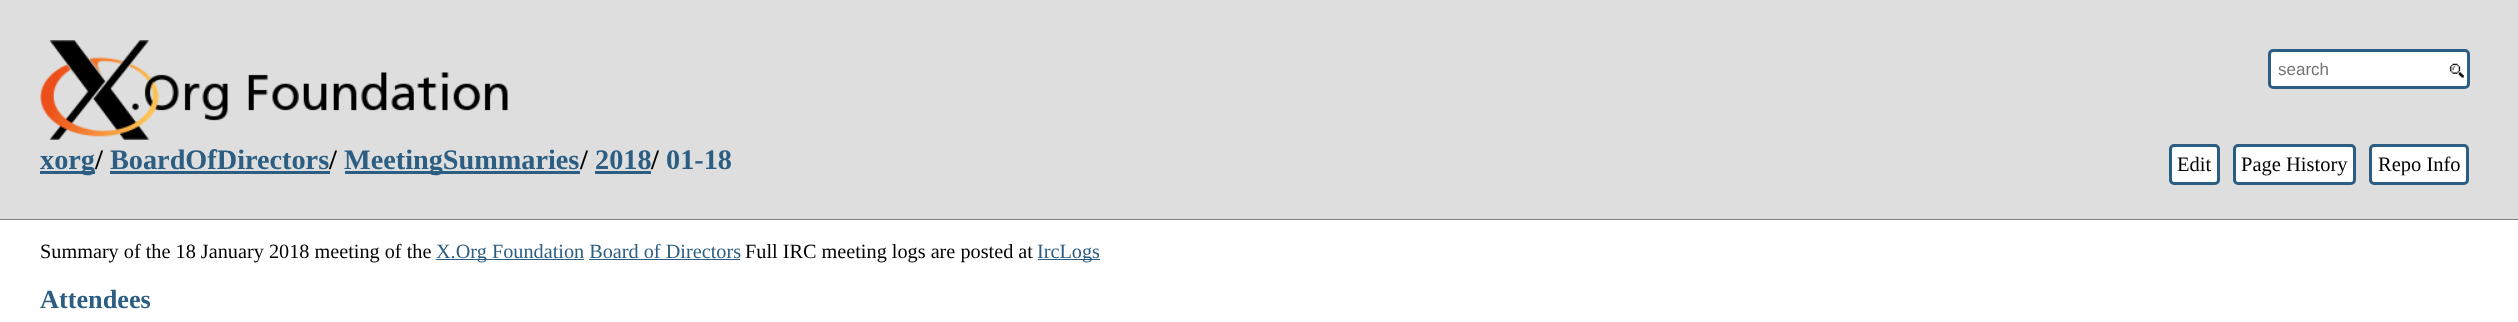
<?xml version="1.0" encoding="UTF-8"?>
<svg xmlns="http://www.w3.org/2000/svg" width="2518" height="322">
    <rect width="100%" height="100%" fill="#FFFFFF"/>
    <rect x="0" y="0" width="2518" height="219" fill="#DEDEDE"/>
    <rect x="0" y="219" width="2518" height="1" fill="#808080"/>
    <image x="40" y="40" width="468" height="100" href="img_01.png"/>
    <rect x="2268" y="49" width="202" height="40" rx="5" fill="#FFFFFF"/>
    <image x="2449" y="63" width="15" height="15" href="img_02.png"/>
    <rect x="2269.5" y="50.5" width="199" height="37" rx="3.5" fill="none" stroke="#2B5E82" stroke-width="3"/>
    <text x="2278" y="75" font-family="Liberation Sans" font-size="17" fill="#757575">search</text>
    <rect x="40" y="171" width="55" height="3" fill="#2B5E82"/>
    <text x="40" y="169" font-family="Liberation Serif" font-size="28.25" font-weight="700" fill="#2B5E82">xorg</text>
    <text x="95" y="169" font-family="Liberation Serif" font-size="28.25" font-weight="700" fill="#000000">/</text>
    <text x="110" y="169" font-family="Liberation Serif" font-size="28.25" font-weight="700" fill="#2B5E82">BoardOfDirectors</text>
    <text x="329" y="169" font-family="Liberation Serif" font-size="28.25" font-weight="700" fill="#000000">/</text>
    <rect x="110" y="171" width="220" height="3" fill="#2B5E82"/>
    <rect x="345" y="171" width="235" height="3" fill="#2B5E82"/>
    <text x="344" y="169" font-family="Liberation Serif" font-size="28.25" font-weight="700" fill="#2B5E82">MeetingSummaries</text>
    <text x="580" y="169" font-family="Liberation Serif" font-size="28.25" font-weight="700" fill="#000000">/</text>
    <text x="595" y="169" font-family="Liberation Serif" font-size="28.25" font-weight="700" fill="#2B5E82">2018</text>
    <rect x="595" y="171" width="56" height="3" fill="#2B5E82"/>
    <text x="651" y="169" font-family="Liberation Serif" font-size="28.25" font-weight="700" fill="#000000">/</text>
    <text x="666" y="169" font-family="Liberation Serif" font-size="28.25" font-weight="700" fill="#2B5E82">01-18</text>
    <rect x="2170.5" y="145.5" width="48" height="38" rx="3.5" fill="#FFFFFF" stroke="#2B5E82" stroke-width="3"/>
    <text x="2177" y="171" font-family="Liberation Serif" font-size="20.5" fill="#000000">Edit</text>
    <rect x="2234.5" y="145.5" width="120" height="38" rx="3.5" fill="#FFFFFF" stroke="#2B5E82" stroke-width="3"/>
    <text x="2241" y="171" font-family="Liberation Serif" font-size="20.5" fill="#000000">Page History</text>
    <rect x="2370.5" y="145.5" width="97" height="38" rx="3.5" fill="#FFFFFF" stroke="#2B5E82" stroke-width="3"/>
    <text x="2378" y="171" font-family="Liberation Serif" font-size="20.5" fill="#000000">Repo Info</text>
    <text x="40" y="258" font-family="Liberation Serif" font-size="20.25" fill="#000000">Summary of the 18 January 2018 meeting of the</text>
    <rect x="436" y="259" width="148" height="1" fill="#2B5E82"/>
    <text x="436" y="258" font-family="Liberation Serif" font-size="20.25" fill="#2B5E82">X.Org Foundation Board of Directors</text>
    <text x="745" y="258" font-family="Liberation Serif" font-size="20.25" fill="#000000">Full IRC meeting logs are posted at</text>
    <rect x="1038" y="259" width="62" height="1" fill="#2B5E82"/>
    <text x="1037" y="258" font-family="Liberation Serif" font-size="20.25" fill="#2B5E82">IrcLogs</text>
    <rect x="589" y="259" width="151" height="1" fill="#2B5E82"/>
    <text x="40" y="308" font-family="Liberation Serif" font-size="26.25" font-weight="700" fill="#2B5E82">Attendees</text>
</svg>
